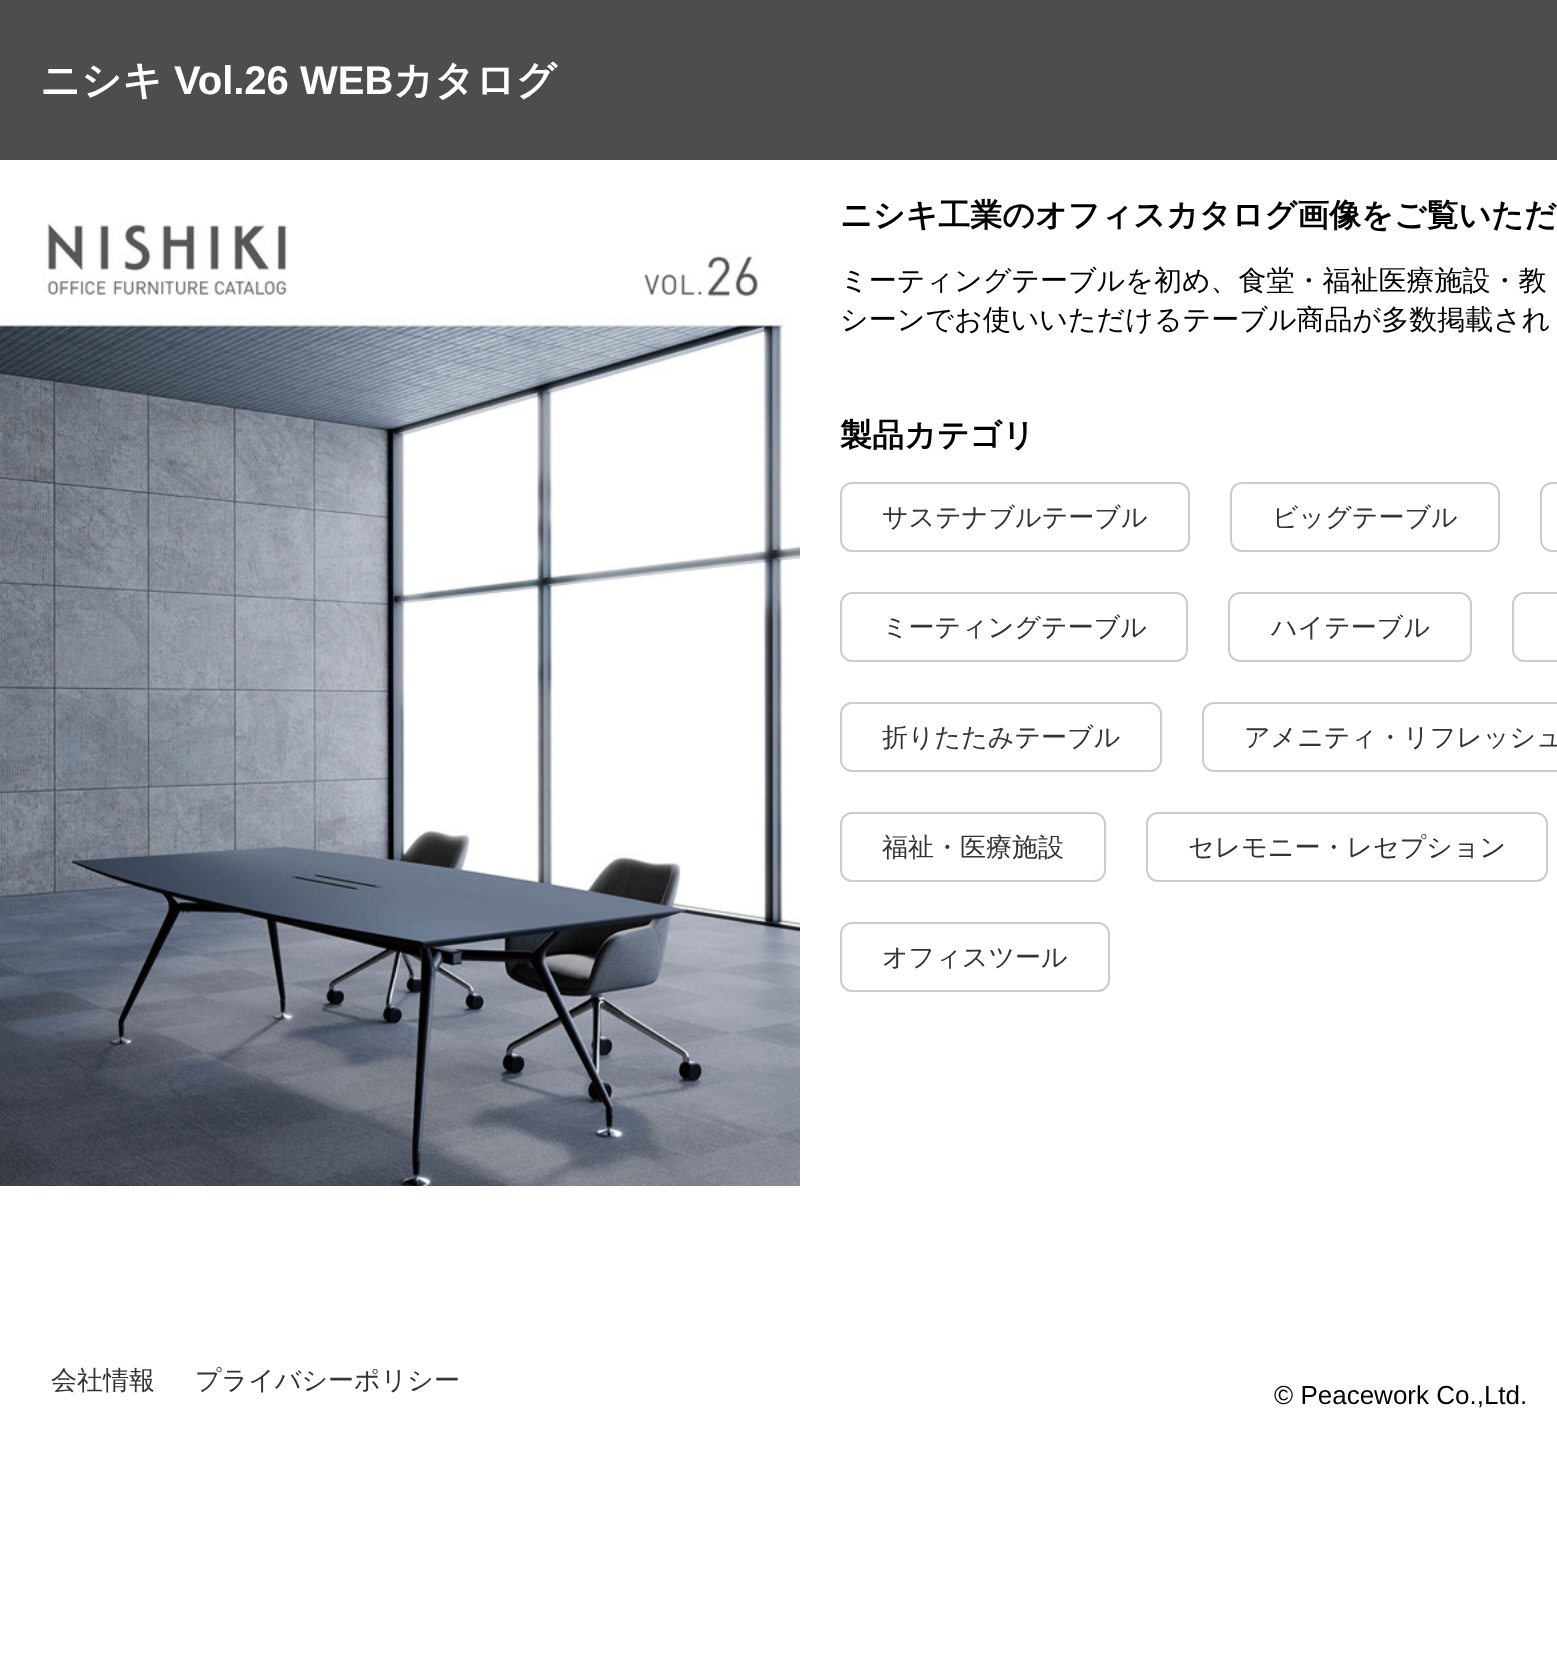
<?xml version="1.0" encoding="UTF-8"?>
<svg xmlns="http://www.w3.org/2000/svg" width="1557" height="1680">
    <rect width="100%" height="100%" fill="#FFFFFF"/>
    <rect x="0" y="0" width="1557" height="160" fill="#4D4D4D"/>
    <text x="40" y="94" font-family="WenQuanYi Zen Hei" font-size="40" font-weight="700" fill="#FFFFFF">ニシキ</text>
    <text x="174" y="94" font-family="Liberation Sans" font-size="40" font-weight="700" fill="#FFFFFF">Vol.26 WEB</text>
    <text x="393" y="94" font-family="WenQuanYi Zen Hei" font-size="40" font-weight="700" fill="#FFFFFF">カタログ</text>
    <image x="0" y="223" width="800" height="963" href="img_01.png"/>
    <text x="840" y="226" font-family="WenQuanYi Zen Hei" font-size="32" font-weight="700" fill="#000000">ニシキ工業のオフィスカタログ画像をご覧いただ</text>
    <text font-family="WenQuanYi Zen Hei" font-size="28" font-weight="500" fill="#000000">
        <tspan x="840" y="290">ミーティングテーブルを初め、食堂・福祉医療施設・教</tspan>
        <tspan x="840" y="329">シーンでお使いいただけるテーブル商品が多数掲載され</tspan>
    </text>
    <text x="840" y="446" font-family="WenQuanYi Zen Hei" font-size="32" font-weight="700" fill="#000000">製品カテゴリ</text>
    <rect x="841" y="483" width="348" height="68" rx="11" fill="none" stroke="#CCCCCC" stroke-width="2"/>
    <text x="882" y="526" font-family="WenQuanYi Zen Hei" font-size="26" font-weight="500" fill="#333333">サステナブルテーブル</text>
    <rect x="1231" y="483" width="268" height="68" rx="11" fill="none" stroke="#CCCCCC" stroke-width="2"/>
    <text x="1272" y="526" font-family="WenQuanYi Zen Hei" font-size="26" font-weight="500" fill="#333333">ビッグテーブル</text>
    <rect x="1541" y="483" width="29" height="68" rx="11" fill="none" stroke="#CCCCCC" stroke-width="2"/>
    <rect x="841" y="593" width="346" height="68" rx="11" fill="none" stroke="#CCCCCC" stroke-width="2"/>
    <text x="882" y="636" font-family="WenQuanYi Zen Hei" font-size="26" font-weight="500" fill="#333333">ミーティングテーブル</text>
    <rect x="1229" y="593" width="242" height="68" rx="11" fill="none" stroke="#CCCCCC" stroke-width="2"/>
    <text x="1271" y="636" font-family="WenQuanYi Zen Hei" font-size="26" font-weight="500" fill="#333333">ハイテーブル</text>
    <rect x="1513" y="593" width="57" height="68" rx="11" fill="none" stroke="#CCCCCC" stroke-width="2"/>
    <rect x="841" y="703" width="320" height="68" rx="11" fill="none" stroke="#CCCCCC" stroke-width="2"/>
    <text x="882" y="746" font-family="WenQuanYi Zen Hei" font-size="26" font-weight="500" fill="#333333">折りたたみテーブル</text>
    <rect x="1203" y="703" width="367" height="68" rx="11" fill="none" stroke="#CCCCCC" stroke-width="2"/>
    <text x="1244" y="746" font-family="WenQuanYi Zen Hei" font-size="26" font-weight="500" fill="#333333">アメニティ・リフレッシュ</text>
    <rect x="841" y="813" width="264" height="68" rx="11" fill="none" stroke="#CCCCCC" stroke-width="2"/>
    <text x="882" y="856" font-family="WenQuanYi Zen Hei" font-size="26" font-weight="500" fill="#333333">福祉・医療施設</text>
    <rect x="1147" y="813" width="400" height="68" rx="11" fill="none" stroke="#CCCCCC" stroke-width="2"/>
    <text x="1188" y="856" font-family="WenQuanYi Zen Hei" font-size="26" font-weight="500" fill="#333333">セレモニー・レセプション</text>
    <rect x="841" y="923" width="268" height="68" rx="11" fill="none" stroke="#CCCCCC" stroke-width="2"/>
    <text x="882" y="966" font-family="WenQuanYi Zen Hei" font-size="26" font-weight="500" fill="#333333">オフィスツール</text>
    <text x="51" y="1389" font-family="WenQuanYi Zen Hei" font-size="26" font-weight="500" fill="#333333">会社情報</text>
    <text x="195" y="1389" font-family="WenQuanYi Zen Hei" font-size="26" font-weight="500" fill="#333333">プライバシーポリシー</text>
    <text x="1274" y="1404" font-family="Liberation Sans" font-size="26" fill="#000000">© Peacework Co.,Ltd.</text>
</svg>
